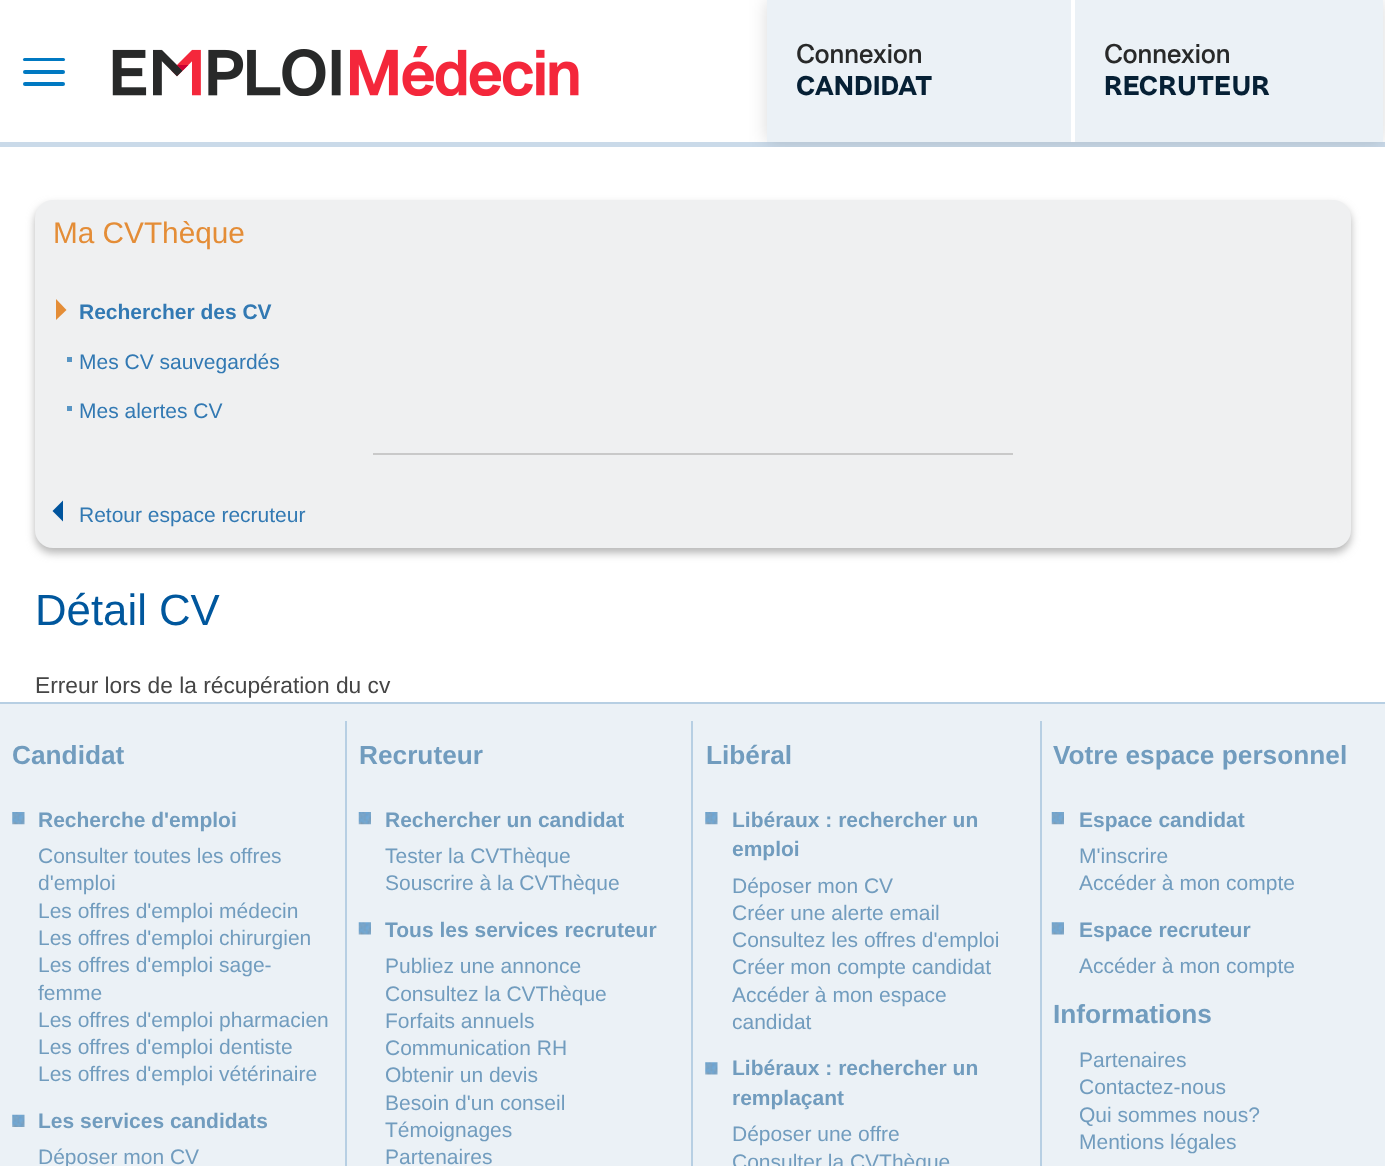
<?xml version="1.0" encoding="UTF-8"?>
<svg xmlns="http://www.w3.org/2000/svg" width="1385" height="1166">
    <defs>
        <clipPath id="clip1"><rect x="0" y="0" width="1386" height="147"/></clipPath>
        <filter id="blur1" x="-50%" y="-200%" width="200%" height="500%"><feGaussianBlur stdDeviation="9"/></filter>
        <filter id="blur2" x="-50%" y="-200%" width="200%" height="500%"><feGaussianBlur stdDeviation="4.5"/></filter>
    </defs>
    <rect width="100%" height="100%" fill="#FFFFFF"/>
    <rect x="23" y="58" width="42" height="3" rx="1.5" fill="#0079C2"/>
    <rect x="23" y="70" width="42" height="4" rx="2" fill="#0079C2"/>
    <rect x="23" y="82" width="42" height="4" rx="2" fill="#0079C2"/>
    <image x="112" y="46" width="467" height="50" href="img_01.png"/>
    <rect x="0" y="142" width="1385" height="5" fill="#CADAE9"/>
    <g clip-path="url(#clip1)">
        <rect x="767" y="0" width="616" height="142" fill="#000000" fill-opacity="0.15" filter="url(#blur1)"/>
    </g>
    <rect x="767" y="0" width="304" height="142" fill="#EBF1F6"/>
    <rect x="1071" y="0" width="4" height="142" fill="#FFFFFF"/>
    <text x="796" y="63" font-family="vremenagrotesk" font-size="26.25" fill="#282929">Connexion</text>
    <text x="796" y="95" font-family="'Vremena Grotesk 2'" font-size="26.25" fill="#062035">CANDIDAT</text>
    <rect x="1075" y="0" width="308" height="142" fill="#EBF1F6"/>
    <text x="1104" y="63" font-family="vremenagrotesk" font-size="26.25" fill="#282929">Connexion</text>
    <text x="1104" y="95" font-family="'Vremena Grotesk 2'" font-size="26.25" fill="#062035">RECRUTEUR</text>
    <rect x="35" y="205" width="1316" height="348" rx="18" fill="#B6B6B6" filter="url(#blur2)"/>
    <rect x="35" y="200" width="1316" height="348" rx="18" fill="#EFF0F1"/>
    <text x="53" y="243" font-family="Liberation Sans" font-size="29.75" fill="#E48D37">Ma CVThèque</text>
    <path d="M 56 320 V 299 L 66.5 310 Z" fill="#E48D37"/>
    <text x="79" y="319" font-family="Liberation Sans" font-size="21" font-weight="700" fill="#3279B3">Rechercher des CV</text>
    <rect x="67" y="357" width="5" height="5" fill="#5895C4"/>
    <text x="79" y="369" font-family="Liberation Sans" font-size="21" fill="#3279B3">Mes CV sauvegardés</text>
    <rect x="67" y="406" width="5" height="5" fill="#5895C4"/>
    <text x="79" y="418" font-family="Liberation Sans" font-size="21" fill="#3279B3">Mes alertes CV</text>
    <rect x="373" y="453" width="640" height="2" fill="#C9C9C9"/>
    <path d="M 63 500.5 V 521.5 L 52.5 511 Z" fill="#00549D"/>
    <text x="79" y="522" font-family="Liberation Sans" font-size="21" fill="#3279B3">Retour espace recruteur</text>
    <text x="35" y="625" font-family="Liberation Sans" font-size="43.75" fill="#00579D">Détail CV</text>
    <text x="35" y="693" font-family="Liberation Sans" font-size="22.75" fill="#454545">Erreur lors de la récupération du cv</text>
    <rect x="0" y="702" width="1385" height="2" fill="#B7CFE3"/>
    <rect x="0" y="704" width="1385" height="462" fill="#EBF1F6"/>
    <rect x="345" y="721" width="2" height="445" fill="#B7CFE3"/>
    <text x="12" y="764" font-family="Liberation Sans" font-size="26.25" font-weight="700" fill="#719CBE">Candidat</text>
    <image x="12" y="812" width="13" height="13" href="img_02.png"/>
    <text x="38" y="827" font-family="Liberation Sans" font-size="21" font-weight="700" fill="#719CBE">Recherche d'emploi</text>
    <text font-family="Liberation Sans" font-size="21" fill="#719CBE">
        <tspan x="38" y="863">Consulter toutes les offres</tspan>
        <tspan x="38" y="890">d'emploi</tspan>
        <tspan x="38" y="918">Les offres d'emploi médecin</tspan>
        <tspan x="38" y="945">Les offres d'emploi chirurgien</tspan>
        <tspan x="38" y="972">Les offres d'emploi sage-</tspan>
        <tspan x="38" y="1000">femme</tspan>
        <tspan x="38" y="1027">Les offres d'emploi pharmacien</tspan>
        <tspan x="38" y="1054">Les offres d'emploi dentiste</tspan>
        <tspan x="38" y="1081">Les offres d'emploi vétérinaire</tspan>
    </text>
    <image x="12" y="1114" width="13" height="13" href="img_03.png"/>
    <text x="38" y="1128" font-family="Liberation Sans" font-size="21" font-weight="700" fill="#719CBE">Les services candidats</text>
    <text x="38" y="1164" font-family="Liberation Sans" font-size="21" fill="#719CBE">Déposer mon CV</text>
    <rect x="691" y="721" width="2" height="445" fill="#B7CFE3"/>
    <text x="359" y="764" font-family="Liberation Sans" font-size="26.25" font-weight="700" fill="#719CBE">Recruteur</text>
    <image x="358" y="812" width="13" height="13" href="img_04.png"/>
    <text x="385" y="827" font-family="Liberation Sans" font-size="21" font-weight="700" fill="#719CBE">Rechercher un candidat</text>
    <text font-family="Liberation Sans" font-size="21" fill="#719CBE">
        <tspan x="385" y="863">Tester la CVThèque</tspan>
        <tspan x="385" y="890">Souscrire à la CVThèque</tspan>
    </text>
    <image x="358" y="922" width="13" height="13" href="img_05.png"/>
    <text x="385" y="937" font-family="Liberation Sans" font-size="21" font-weight="700" fill="#719CBE">Tous les services recruteur</text>
    <text font-family="Liberation Sans" font-size="21" fill="#719CBE">
        <tspan x="385" y="973">Publiez une annonce</tspan>
        <tspan x="385" y="1001">Consultez la CVThèque</tspan>
        <tspan x="385" y="1028">Forfaits annuels</tspan>
        <tspan x="385" y="1055">Communication RH</tspan>
        <tspan x="385" y="1082">Obtenir un devis</tspan>
        <tspan x="385" y="1110">Besoin d'un conseil</tspan>
        <tspan x="385" y="1137">Témoignages</tspan>
        <tspan x="385" y="1164">Partenaires</tspan>
    </text>
    <rect x="1040" y="721" width="2" height="445" fill="#B7CFE3"/>
    <text x="706" y="764" font-family="Liberation Sans" font-size="26.25" font-weight="700" fill="#719CBE">Libéral</text>
    <image x="705" y="812" width="13" height="13" href="img_02.png"/>
    <text font-family="Liberation Sans" font-size="21" font-weight="700" fill="#719CBE">
        <tspan x="732" y="827">Libéraux : rechercher un</tspan>
        <tspan x="732" y="856">emploi</tspan>
    </text>
    <text font-family="Liberation Sans" font-size="21" fill="#719CBE">
        <tspan x="732" y="893">Déposer mon CV</tspan>
        <tspan x="732" y="920">Créer une alerte email</tspan>
        <tspan x="732" y="947">Consultez les offres d'emploi</tspan>
        <tspan x="732" y="974">Créer mon compte candidat</tspan>
        <tspan x="732" y="1002">Accéder à mon espace</tspan>
        <tspan x="732" y="1029">candidat</tspan>
    </text>
    <image x="705" y="1062" width="13" height="13" href="img_06.png"/>
    <text font-family="Liberation Sans" font-size="21" font-weight="700" fill="#719CBE">
        <tspan x="732" y="1075">Libéraux : rechercher un</tspan>
        <tspan x="732" y="1105">remplaçant</tspan>
    </text>
    <text font-family="Liberation Sans" font-size="21" fill="#719CBE">
        <tspan x="732" y="1141">Déposer une offre</tspan>
        <tspan x="732" y="1169">Consulter la CVThèque</tspan>
    </text>
    <text x="1053" y="764" font-family="Liberation Sans" font-size="26.25" font-weight="700" fill="#719CBE">Votre espace personnel</text>
    <image x="1051" y="812" width="13" height="13" href="img_07.png"/>
    <text x="1079" y="827" font-family="Liberation Sans" font-size="21" font-weight="700" fill="#719CBE">Espace candidat</text>
    <text font-family="Liberation Sans" font-size="21" fill="#719CBE">
        <tspan x="1079" y="863">M'inscrire</tspan>
        <tspan x="1079" y="890">Accéder à mon compte</tspan>
    </text>
    <image x="1051" y="922" width="13" height="13" href="img_08.png"/>
    <text x="1079" y="937" font-family="Liberation Sans" font-size="21" font-weight="700" fill="#719CBE">Espace recruteur</text>
    <text x="1079" y="973" font-family="Liberation Sans" font-size="21" fill="#719CBE">Accéder à mon compte</text>
    <text x="1053" y="1023" font-family="Liberation Sans" font-size="26.25" font-weight="700" fill="#719CBE">Informations</text>
    <text font-family="Liberation Sans" font-size="21" fill="#719CBE">
        <tspan x="1079" y="1067">Partenaires</tspan>
        <tspan x="1079" y="1094">Contactez-nous</tspan>
        <tspan x="1079" y="1122">Qui sommes nous?</tspan>
        <tspan x="1079" y="1149">Mentions légales</tspan>
    </text>
</svg>
